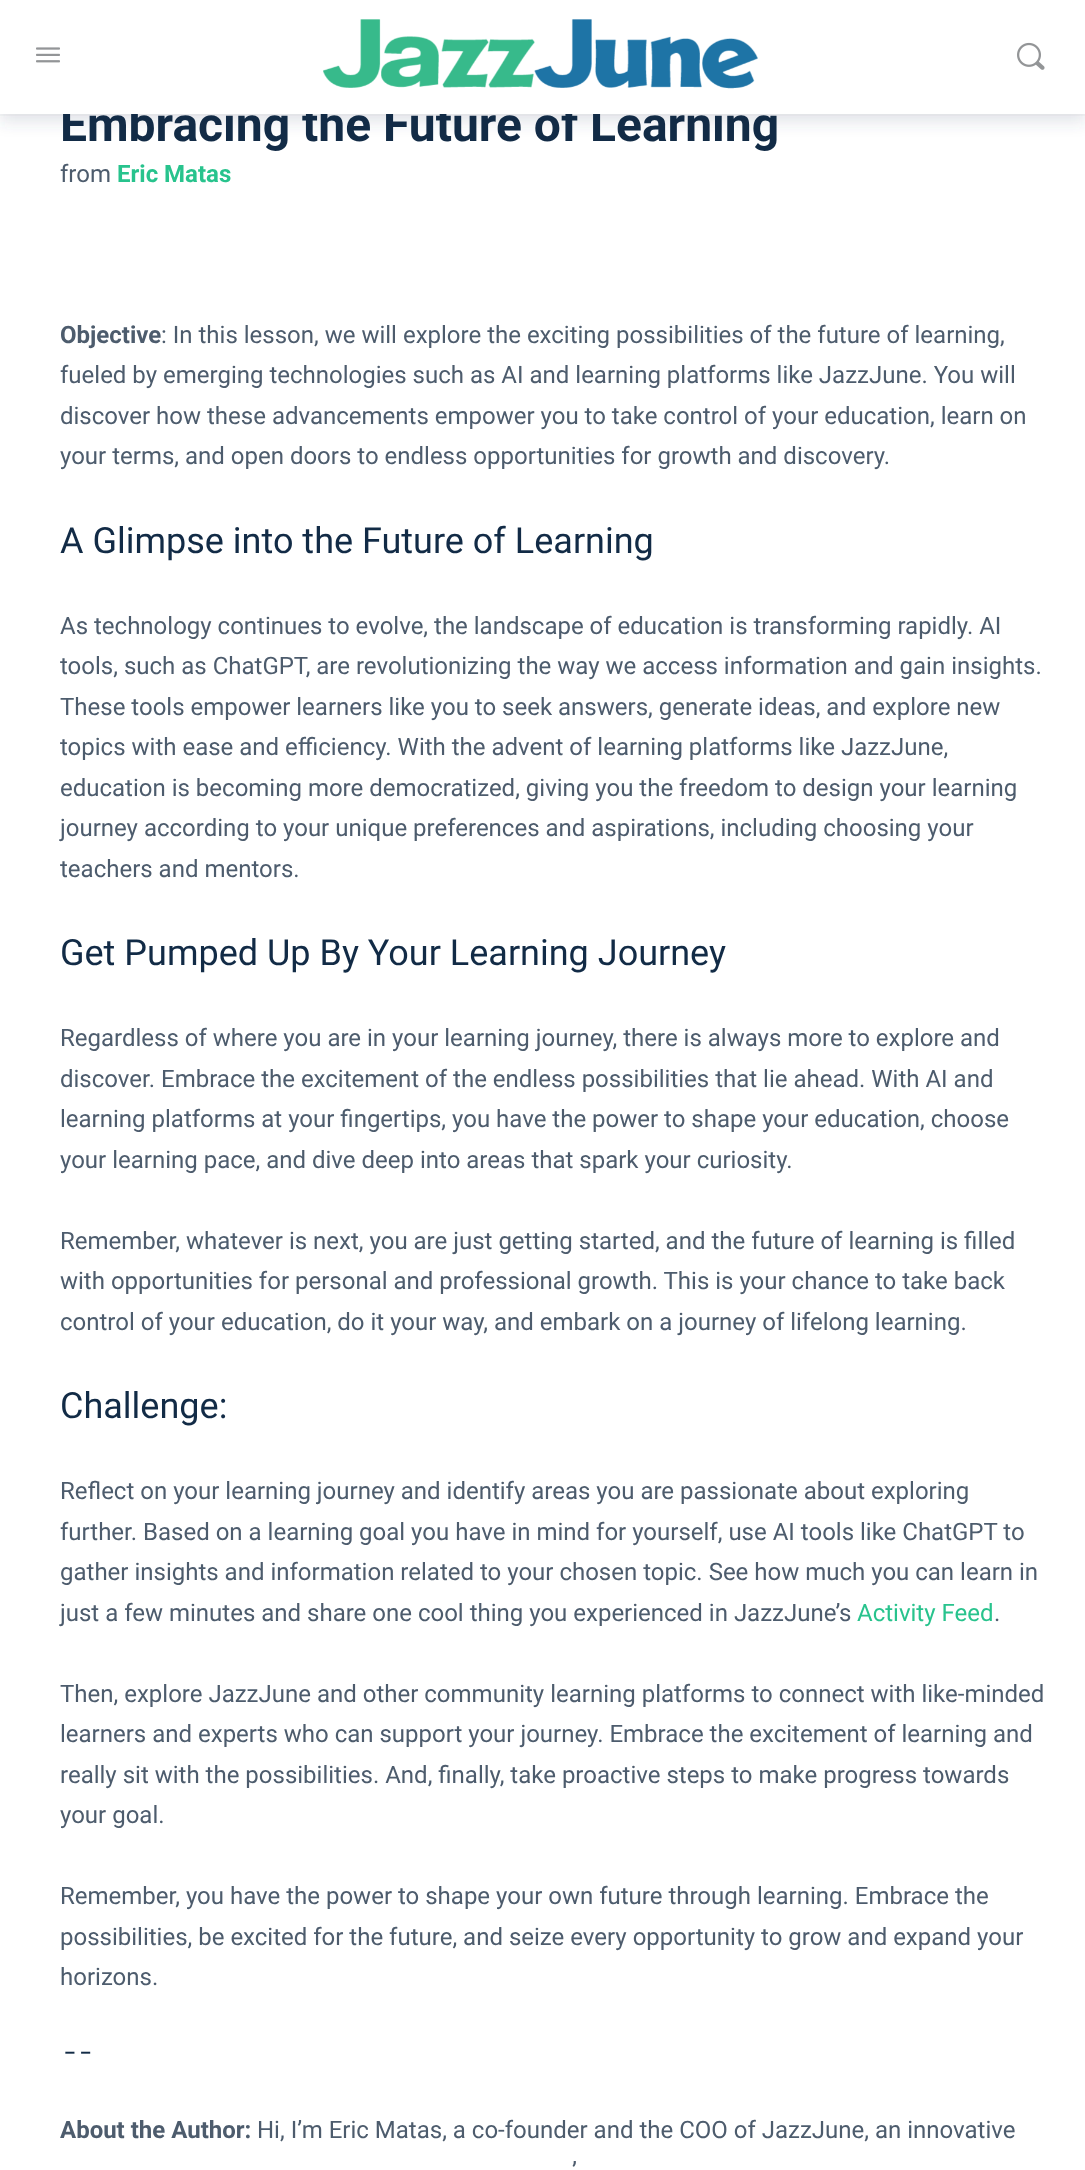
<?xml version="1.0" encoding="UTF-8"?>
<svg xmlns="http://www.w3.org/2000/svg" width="1085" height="2170">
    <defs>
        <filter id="blur1" x="-50%" y="-200%" width="200%" height="500%"><feGaussianBlur stdDeviation="7.5"/></filter>
    </defs>
    <rect width="100%" height="100%" fill="#FFFFFF"/>
    <rect x="0" y="8" width="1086" height="114" fill="#41476C" fill-opacity="0.15" filter="url(#blur1)"/>
    <rect x="0" y="114" width="1085" height="2" fill="#8B8D9D" fill-opacity="0.05"/>
    <text x="60" y="141" font-family="Roboto" font-size="48" font-weight="700" fill="#122B46">Embracing the Future of Learning</text>
    <rect x="0" y="0" width="1085" height="114" fill="#FFFFFF"/>
    <image x="36" y="47" width="24" height="16" href="img_01.png"/>
    <image x="323" y="19" width="435" height="70" href="img_02.png"/>
    <image x="1017" y="42" width="28" height="28" href="img_03.png"/>
    <text x="60" y="182" font-family="Roboto" font-size="24" fill="#4D5C6D">from</text>
    <text x="117" y="182" font-family="Roboto" font-size="24" font-weight="700" fill="#28C38D">Eric Matas</text>
    <text x="60" y="343" font-family="Roboto" font-size="24" font-weight="700" fill="#4D5C6D">Objective</text>
    <text x="161" y="343" font-family="Roboto" font-size="24" fill="#4D5C6D">: In this lesson, we will explore the exciting possibilities of the future of learning,</text>
    <text font-family="Roboto" font-size="24" fill="#4D5C6D">
        <tspan x="60" y="383">fueled by emerging technologies such as AI and learning platforms like JazzJune. You will</tspan>
        <tspan x="60" y="424">discover how these advancements empower you to take control of your education, learn on</tspan>
        <tspan x="60" y="464">your terms, and open doors to endless opportunities for growth and discovery.</tspan>
    </text>
    <text x="60" y="553" font-family="Roboto" font-size="36" fill="#122B46">A Glimpse into the Future of Learning</text>
    <text font-family="Roboto" font-size="24" fill="#4D5C6D">
        <tspan x="60" y="634">As technology continues to evolve, the landscape of education is transforming rapidly. AI</tspan>
        <tspan x="60" y="674">tools, such as ChatGPT, are revolutionizing the way we access information and gain insights.</tspan>
        <tspan x="60" y="715">These tools empower learners like you to seek answers, generate ideas, and explore new</tspan>
        <tspan x="60" y="755">topics with ease and efficiency. With the advent of learning platforms like JazzJune,</tspan>
        <tspan x="60" y="796">education is becoming more democratized, giving you the freedom to design your learning</tspan>
        <tspan x="60" y="836">journey according to your unique preferences and aspirations, including choosing your</tspan>
        <tspan x="60" y="877">teachers and mentors.</tspan>
    </text>
    <text x="60" y="965" font-family="Roboto" font-size="36" fill="#122B46">Get Pumped Up By Your Learning Journey</text>
    <text font-family="Roboto" font-size="24" fill="#4D5C6D">
        <tspan x="60" y="1046">Regardless of where you are in your learning journey, there is always more to explore and</tspan>
        <tspan x="60" y="1087">discover. Embrace the excitement of the endless possibilities that lie ahead. With AI and</tspan>
        <tspan x="60" y="1127">learning platforms at your fingertips, you have the power to shape your education, choose</tspan>
        <tspan x="60" y="1168">your learning pace, and dive deep into areas that spark your curiosity.</tspan>
    </text>
    <text font-family="Roboto" font-size="24" fill="#4D5C6D">
        <tspan x="60" y="1249">Remember, whatever is next, you are just getting started, and the future of learning is filled</tspan>
        <tspan x="60" y="1289">with opportunities for personal and professional growth. This is your chance to take back</tspan>
        <tspan x="60" y="1330">control of your education, do it your way, and embark on a journey of lifelong learning.</tspan>
    </text>
    <text x="60" y="1418" font-family="Roboto" font-size="36" fill="#122B46">Challenge:</text>
    <text font-family="Roboto" font-size="24" fill="#4D5C6D">
        <tspan x="60" y="1499">Reflect on your learning journey and identify areas you are passionate about exploring</tspan>
        <tspan x="60" y="1540">further. Based on a learning goal you have in mind for yourself, use AI tools like ChatGPT to</tspan>
        <tspan x="60" y="1580">gather insights and information related to your chosen topic. See how much you can learn in</tspan>
        <tspan x="60" y="1621">just a few minutes and share one cool thing you experienced in JazzJune’s</tspan>
    </text>
    <text x="857" y="1621" font-family="Roboto" font-size="24" fill="#28C38D">Activity Feed</text>
    <text x="994" y="1621" font-family="Roboto" font-size="24" fill="#4D5C6D">.</text>
    <text font-family="Roboto" font-size="24" fill="#4D5C6D">
        <tspan x="60" y="1702">Then, explore JazzJune and other community learning platforms to connect with like-minded</tspan>
        <tspan x="60" y="1742">learners and experts who can support your journey. Embrace the excitement of learning and</tspan>
        <tspan x="60" y="1783">really sit with the possibilities. And, finally, take proactive steps to make progress towards</tspan>
        <tspan x="60" y="1823">your goal.</tspan>
    </text>
    <text font-family="Roboto" font-size="24" fill="#4D5C6D">
        <tspan x="60" y="1904">Remember, you have the power to shape your own future through learning. Embrace the</tspan>
        <tspan x="60" y="1945">possibilities, be excited for the future, and seize every opportunity to grow and expand your</tspan>
        <tspan x="60" y="1985">horizons.</tspan>
    </text>
    <text x="64" y="2059" font-family="Roboto" font-size="18" font-weight="700" fill="#122B46">– –</text>
    <text x="60" y="2138" font-family="Roboto" font-size="24" font-weight="700" fill="#4D5C6D">About the Author:</text>
    <text x="257" y="2138" font-family="Roboto" font-size="24" fill="#4D5C6D">Hi, I’m Eric Matas, a co-founder and the COO of JazzJune, an innovative</text>
    <text x="572" y="2179" font-family="Roboto" font-size="24" fill="#4D5C6D">’</text>
</svg>
